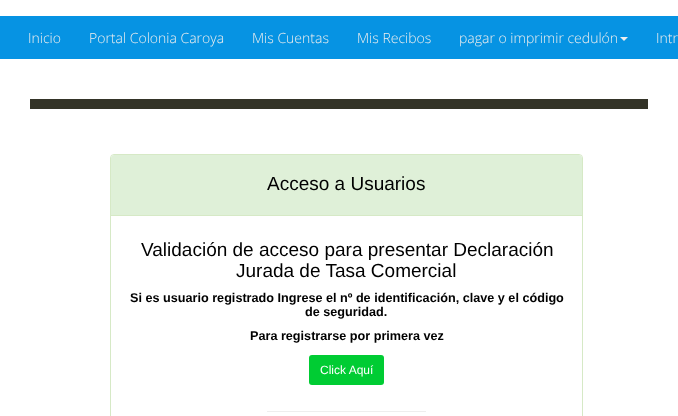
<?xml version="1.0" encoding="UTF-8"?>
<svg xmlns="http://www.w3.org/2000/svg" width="678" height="416">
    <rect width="100%" height="100%" fill="#FFFFFF"/>
    <rect x="0" y="16" width="678" height="43" fill="#0693E3"/>
    <text x="28" y="43" font-family="Open Sans" font-size="14" font-weight="300" fill="#EEEEEE">Inicio</text>
    <text x="89" y="43" font-family="Open Sans" font-size="14" font-weight="300" fill="#EEEEEE">Portal Colonia Caroya</text>
    <text x="252" y="43" font-family="Open Sans" font-size="14" font-weight="300" fill="#EEEEEE">Mis Cuentas</text>
    <text x="357" y="43" font-family="Open Sans" font-size="14" font-weight="300" fill="#EEEEEE">Mis Recibos</text>
    <text x="459" y="43" font-family="Open Sans" font-size="14" font-weight="300" fill="#EEEEEE">pagar o imprimir cedulón</text>
    <path d="M 620 37 H 628 L 624 41 Z" fill="#EEEEEE"/>
    <text x="656" y="43" font-family="Open Sans" font-size="14" font-weight="300" fill="#EEEEEE">Intr</text>
    <rect x="30" y="99" width="618" height="10" fill="#343428"/>
    <rect x="110.5" y="154.5" width="472" height="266" rx="3.5" fill="none" stroke="#D6E9C6"/>
    <path d="M 114 155 H 579 C 580.5 155 582 156.5 582 158 V 216 H 111 V 158 C 111 156.5 112.5 155 114 155 Z" fill="#DFF0D8"/>
    <rect x="111" y="215" width="471" height="1" fill="#D6E9C6"/>
    <text x="267" y="190" font-family="Liberation Sans" font-size="19" fill="#000000">Acceso a Usuarios</text>
    <text x="141" y="256" font-family="Liberation Sans" font-size="19" fill="#000000">Validación de acceso para presentar Declaración</text>
    <text x="236" y="277" font-family="Liberation Sans" font-size="19" fill="#000000">Jurada de Tasa Comercial</text>
    <text x="130" y="302" font-family="Liberation Sans" font-size="12.65" font-weight="700" fill="#000000">Si es usuario registrado Ingrese el nº de identificación, clave y el código</text>
    <text x="305" y="316" font-family="Liberation Sans" font-size="12.65" font-weight="700" fill="#000000">de seguridad.</text>
    <text x="250" y="340" font-family="Liberation Sans" font-size="12.65" font-weight="700" fill="#000000">Para registrarse por primera vez</text>
    <rect x="309" y="355" width="75" height="30" rx="3" fill="#00CC33"/>
    <text x="320" y="374" font-family="Liberation Sans" font-size="12" fill="#FFFFFF">Click Aquí</text>
    <rect x="267" y="411" width="159" height="1" fill="#EEEEEE"/>
</svg>
